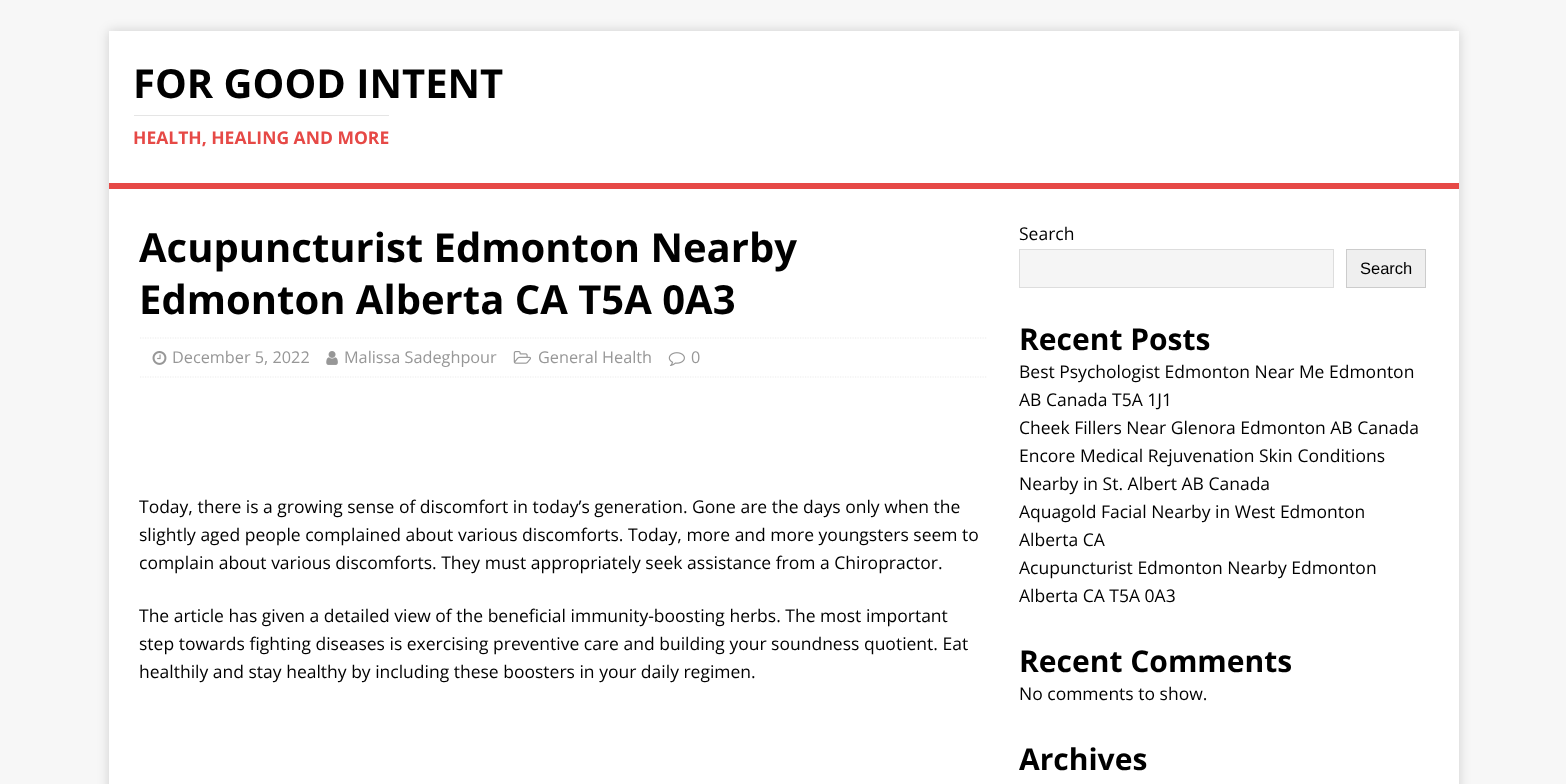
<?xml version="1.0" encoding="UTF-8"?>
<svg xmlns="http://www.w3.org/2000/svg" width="1566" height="784">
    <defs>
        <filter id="blur1" x="-50%" y="-200%" width="200%" height="500%"><feGaussianBlur stdDeviation="6"/></filter>
    </defs>
    <rect width="100%" height="100%" fill="#F7F7F7"/>
    <rect x="109" y="31" width="1350" height="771" fill="#323232" fill-opacity="0.17" filter="url(#blur1)"/>
    <rect x="109" y="31" width="1350" height="152" fill="#FFFFFF"/>
    <text x="133" y="98" font-family="Open Sans" font-size="40" font-weight="700" fill="#000000">FOR GOOD INTENT</text>
    <rect x="134" y="115" width="255" height="1" fill="#E5E5E5"/>
    <text x="133" y="144" font-family="Open Sans" font-size="17.5" font-weight="700" fill="#E64946">HEALTH, HEALING AND MORE</text>
    <rect x="109" y="183" width="1350" height="6" fill="#E64946"/>
    <rect x="109" y="189" width="1350" height="595" fill="#FFFFFF"/>
    <text font-family="Open Sans" font-size="40" font-weight="700" fill="#000000">
        <tspan x="139" y="262">Acupuncturist Edmonton Nearby</tspan>
        <tspan x="139" y="314">Edmonton Alberta CA T5A 0A3</tspan>
    </text>
    <path d="M 140 338 H 987.5" fill="none" stroke="#EBEBEB" stroke-width="1.2" stroke-dasharray="1.25 1.25"/>
    <path d="M 140 377 H 987.5" fill="none" stroke="#EBEBEB" stroke-width="1.2" stroke-dasharray="1.25 1.25"/>
    <image x="152" y="351" width="15" height="14" href="img_01.png"/>
    <text x="172" y="363" font-family="Open Sans" font-size="16.25" fill="#979797">December 5, 2022</text>
    <image x="326" y="351" width="12" height="14" href="img_02.png"/>
    <text x="344" y="363" font-family="Open Sans" font-size="16.25" fill="#979797">Malissa Sadeghpour</text>
    <image x="513" y="351" width="18" height="13" href="img_03.png"/>
    <text x="538" y="363" font-family="Open Sans" font-size="16.25" fill="#979797">General Health</text>
    <image x="668" y="352" width="17" height="14" href="img_04.png"/>
    <text x="691" y="363" font-family="Open Sans" font-size="16.25" fill="#979797">0</text>
    <text font-family="Open Sans" font-size="17.5" fill="#000000">
        <tspan x="139" y="513">Today, there is a growing sense of discomfort in today’s generation. Gone are the days only when the</tspan>
        <tspan x="139" y="541">slightly aged people complained about various discomforts. Today, more and more youngsters seem to</tspan>
        <tspan x="139" y="569">complain about various discomforts. They must appropriately seek assistance from a Chiropractor.</tspan>
    </text>
    <text font-family="Open Sans" font-size="17.5" fill="#000000">
        <tspan x="139" y="622">The article has given a detailed view of the beneficial immunity-boosting herbs. The most important</tspan>
        <tspan x="139" y="650">step towards fighting diseases is exercising preventive care and building your soundness quotient. Eat</tspan>
        <tspan x="139" y="678">healthily and stay healthy by including these boosters in your daily regimen.</tspan>
    </text>
    <text x="1019" y="240" font-family="Open Sans" font-size="17.5" fill="#000000">Search</text>
    <rect x="1019.5" y="249.5" width="314" height="38" fill="#F5F5F5" stroke="#DDDDDD"/>
    <rect x="1346.5" y="249.5" width="79" height="38" fill="#EFEFEF" stroke="#CCCCCC"/>
    <text x="1360" y="274" font-family="Liberation Sans" font-size="16.5" fill="#000000">Search</text>
    <text x="1019" y="350" font-family="Open Sans" font-size="30" font-weight="700" fill="#000000">Recent Posts</text>
    <text font-family="Open Sans" font-size="17.5" fill="#000000">
        <tspan x="1019" y="378">Best Psychologist Edmonton Near Me Edmonton</tspan>
        <tspan x="1019" y="406">AB Canada T5A 1J1</tspan>
        <tspan x="1019" y="434">Cheek Fillers Near Glenora Edmonton AB Canada</tspan>
        <tspan x="1019" y="462">Encore Medical Rejuvenation Skin Conditions</tspan>
        <tspan x="1019" y="490">Nearby in St. Albert AB Canada</tspan>
        <tspan x="1019" y="518">Aquagold Facial Nearby in West Edmonton</tspan>
        <tspan x="1019" y="546">Alberta CA</tspan>
        <tspan x="1019" y="574">Acupuncturist Edmonton Nearby Edmonton</tspan>
        <tspan x="1019" y="602">Alberta CA T5A 0A3</tspan>
    </text>
    <text x="1019" y="672" font-family="Open Sans" font-size="30" font-weight="700" fill="#000000">Recent Comments</text>
    <text x="1019" y="700" font-family="Open Sans" font-size="17.5" fill="#000000">No comments to show.</text>
    <text x="1019" y="770" font-family="Open Sans" font-size="30" font-weight="700" fill="#000000">Archives</text>
</svg>
